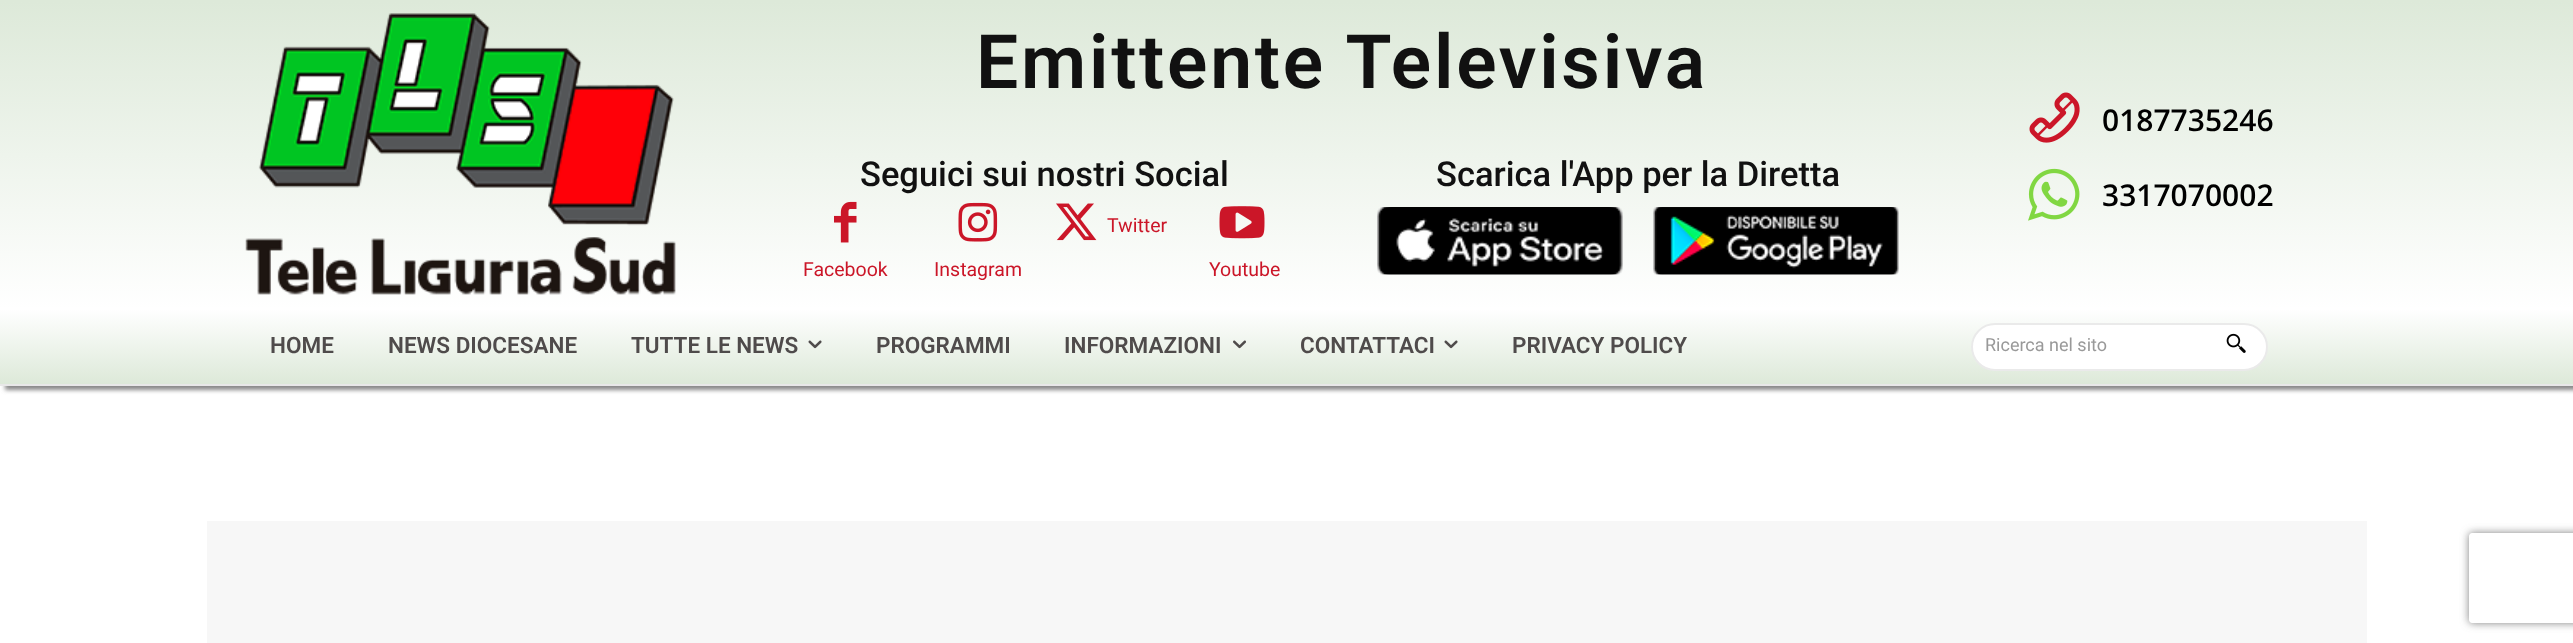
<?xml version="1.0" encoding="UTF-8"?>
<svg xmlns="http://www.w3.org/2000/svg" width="2573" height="643">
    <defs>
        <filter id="blur1" x="-50%" y="-200%" width="200%" height="500%"><feGaussianBlur stdDeviation="2"/></filter>
        <linearGradient id="g1" gradientUnits="userSpaceOnUse" x1="1287" y1="1.5" x2="1287" y2="309"><stop offset="0" stop-color="#DDE9D9"/><stop offset="1" stop-color="#FFFFFF"/></linearGradient>
        <linearGradient id="g2" gradientUnits="userSpaceOnUse" x1="1287" y1="309" x2="1287" y2="384"><stop offset="0" stop-color="#FFFFFF"/><stop offset="1" stop-color="#DDE9D9"/></linearGradient>
        <clipPath id="clip1"><path d="M 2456 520 H 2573 V 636 H 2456 Z M 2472 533 H 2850 C 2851.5 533 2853 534.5 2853 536 V 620 C 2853 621.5 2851.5 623 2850 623 H 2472 C 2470.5 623 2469 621.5 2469 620 V 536 C 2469 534.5 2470.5 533 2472 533 Z" clip-rule="evenodd"/></clipPath>
        <filter id="blur2" x="-50%" y="-200%" width="200%" height="500%"><feGaussianBlur stdDeviation="4"/></filter>
    </defs>
    <rect width="100%" height="100%" fill="#FFFFFF"/>
    <rect x="5" y="5" width="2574" height="385" fill="#888888" filter="url(#blur1)"/>
    <rect x="0" y="384" width="2573" height="2" fill="#E8E8E8"/>
    <rect x="0" y="0" width="2573" height="2" fill="#DDE9D9"/>
    <rect x="0" y="2" width="2573" height="307" fill="url(#g1)"/>
    <image x="245" y="13" width="431" height="282" href="img_01.png"/>
    <text x="976" y="88" font-family="Roboto" font-size="75" font-weight="600" letter-spacing="2.75" fill="#111111">Emittente Televisiva</text>
    <text x="860" y="186" font-family="Roboto" font-size="34.5" font-weight="500" fill="#111111">Seguici sui nostri Social</text>
    <image x="1056" y="203" width="41" height="38" href="img_02.png"/>
    <text x="1107" y="232" font-family="Roboto" font-size="19.5" fill="#CB1628">Twitter</text>
    <image x="834" y="201" width="23" height="42" href="img_03.png"/>
    <text x="803" y="276" font-family="Roboto" font-size="19.5" fill="#CB1628">Facebook</text>
    <image x="958" y="202" width="40" height="40" href="img_04.png"/>
    <text x="934" y="276" font-family="Roboto" font-size="19.5" fill="#CB1628">Instagram</text>
    <image x="1219" y="206" width="46" height="33" href="img_05.png"/>
    <text x="1209" y="276" font-family="Roboto" font-size="19.5" fill="#CB1628">Youtube</text>
    <text x="1436" y="186" font-family="Roboto" font-size="34.5" font-weight="500" fill="#111111">Scarica l'App per la Diretta</text>
    <image x="1377" y="207" width="246" height="68" href="img_06.png"/>
    <image x="1653" y="207" width="246" height="68" href="img_07.png"/>
    <image x="2029" y="92" width="51" height="51" href="img_08.png"/>
    <text x="2102" y="131" font-family="Open Sans" font-size="30" font-weight="600" fill="#000000">0187735246</text>
    <image x="2028" y="168" width="52" height="53" href="img_09.png"/>
    <text x="2102" y="206" font-family="Open Sans" font-size="30" font-weight="600" fill="#000000">3317070002</text>
    <rect x="0" y="309" width="2573" height="75" fill="url(#g2)"/>
    <text x="270" y="353" font-family="Roboto" font-size="22.5" font-weight="600" fill="#4F4B4B">HOME</text>
    <text x="388" y="353" font-family="Roboto" font-size="22.5" font-weight="600" fill="#4F4B4B">NEWS DIOCESANE</text>
    <text x="631" y="353" font-family="Roboto" font-size="22.5" font-weight="600" fill="#4F4B4B">TUTTE LE NEWS</text>
    <image x="808" y="340" width="14" height="9" href="img_10.png"/>
    <text x="876" y="353" font-family="Roboto" font-size="22.5" font-weight="600" fill="#4F4B4B">PROGRAMMI</text>
    <text x="1064" y="353" font-family="Roboto" font-size="22.5" font-weight="600" fill="#4F4B4B">INFORMAZIONI</text>
    <image x="1233" y="340" width="13" height="9" href="img_11.png"/>
    <text x="1300" y="353" font-family="Roboto" font-size="22.5" font-weight="600" fill="#4F4B4B">CONTATTACI</text>
    <image x="1444" y="340" width="14" height="9" href="img_10.png"/>
    <text x="1512" y="353" font-family="Roboto" font-size="22.5" font-weight="600" fill="#4F4B4B">PRIVACY POLICY</text>
    <rect x="1972" y="324" width="295" height="46" rx="23" fill="#FFFFFF" stroke="#EAEAEA" stroke-width="2"/>
    <text x="1985" y="351" font-family="Roboto" font-size="18" fill="#999999">Ricerca nel sito</text>
    <image x="2226" y="333" width="20" height="20" href="img_12.png"/>
    <rect x="207" y="521" width="2160" height="122" fill="#F7F7F7"/>
    <g clip-path="url(#clip1)">
        <rect x="2469" y="533" width="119" height="90" rx="3" fill="#808080" filter="url(#blur2)"/>
    </g>
</svg>
